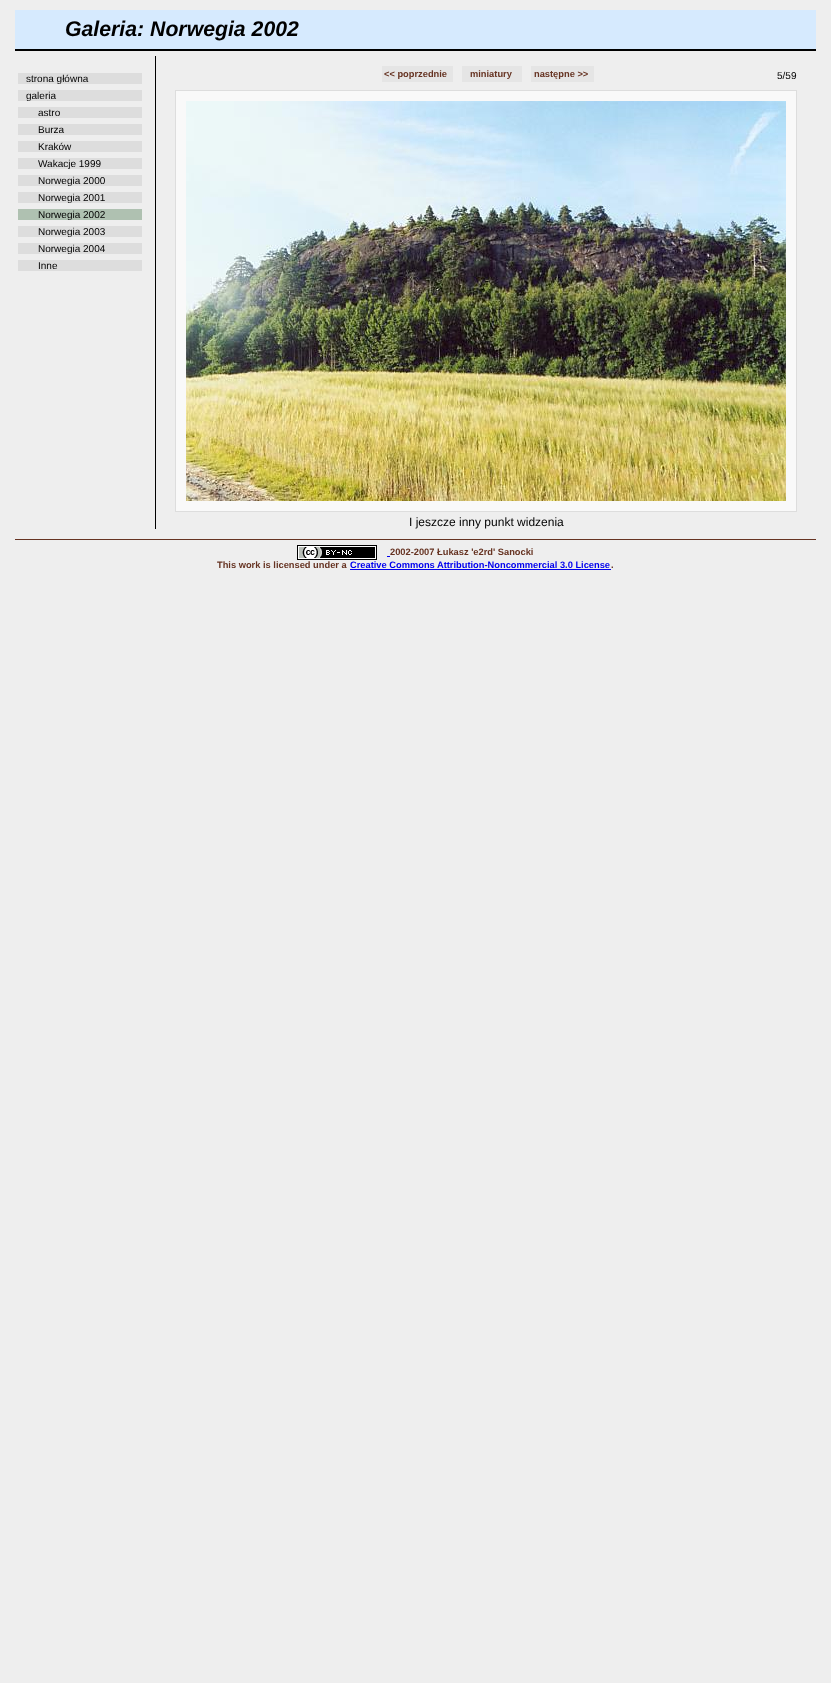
<?xml version="1.0" encoding="UTF-8"?>
<svg xmlns="http://www.w3.org/2000/svg" width="831" height="1683">
    <rect width="100%" height="100%" fill="#EEEEEE"/>
    <rect x="15" y="10" width="801" height="39" fill="#D6EAFE"/>
    <rect x="15" y="49" width="801" height="2" fill="#000000"/>
    <text x="65" y="36" font-family="Liberation Sans" font-size="21.25" font-weight="700" font-style="italic" fill="#000000">Galeria: Norwegia 2002</text>
    <rect x="18" y="73" width="124" height="11" fill="#DDDDDD"/>
    <text x="26" y="82" font-family="Liberation Sans" font-size="10" fill="#000000">strona główna</text>
    <rect x="18" y="90" width="124" height="11" fill="#DDDDDD"/>
    <text x="26" y="99" font-family="Liberation Sans" font-size="10" fill="#000000">galeria</text>
    <rect x="18" y="107" width="124" height="11" fill="#DDDDDD"/>
    <text x="38" y="116" font-family="Liberation Sans" font-size="10" fill="#000000">astro</text>
    <rect x="18" y="124" width="124" height="11" fill="#DDDDDD"/>
    <text x="38" y="133" font-family="Liberation Sans" font-size="10" fill="#000000">Burza</text>
    <rect x="18" y="141" width="124" height="11" fill="#DDDDDD"/>
    <text x="38" y="150" font-family="Liberation Sans" font-size="10" fill="#000000">Kraków</text>
    <rect x="18" y="158" width="124" height="11" fill="#DDDDDD"/>
    <text x="38" y="167" font-family="Liberation Sans" font-size="10" fill="#000000">Wakacje 1999</text>
    <rect x="18" y="175" width="124" height="11" fill="#DDDDDD"/>
    <text x="38" y="184" font-family="Liberation Sans" font-size="10" fill="#000000">Norwegia 2000</text>
    <rect x="18" y="192" width="124" height="11" fill="#DDDDDD"/>
    <text x="38" y="201" font-family="Liberation Sans" font-size="10" fill="#000000">Norwegia 2001</text>
    <rect x="18" y="209" width="124" height="11" fill="#AFC1B1"/>
    <text x="38" y="218" font-family="Liberation Sans" font-size="10" fill="#000000">Norwegia 2002</text>
    <rect x="18" y="226" width="124" height="11" fill="#DDDDDD"/>
    <text x="38" y="235" font-family="Liberation Sans" font-size="10" fill="#000000">Norwegia 2003</text>
    <rect x="18" y="243" width="124" height="11" fill="#DDDDDD"/>
    <text x="38" y="252" font-family="Liberation Sans" font-size="10" fill="#000000">Norwegia 2004</text>
    <rect x="18" y="260" width="124" height="11" fill="#DDDDDD"/>
    <text x="38" y="269" font-family="Liberation Sans" font-size="10" fill="#000000">Inne</text>
    <rect x="155" y="56" width="1" height="473" fill="#000000"/>
    <rect x="382" y="66" width="71" height="16" fill="#E5E5E5"/>
    <text x="384" y="77" font-family="Liberation Sans" font-size="9.3" font-weight="700" fill="#663322">&lt;&lt; poprzednie</text>
    <rect x="462" y="66" width="60" height="16" fill="#E5E5E5"/>
    <text x="470" y="77" font-family="Liberation Sans" font-size="9.3" font-weight="700" fill="#663322">miniatury</text>
    <rect x="531" y="66" width="63" height="16" fill="#E5E5E5"/>
    <text x="534" y="77" font-family="Liberation Sans" font-size="9.3" font-weight="700" fill="#663322">następne &gt;&gt;</text>
    <text x="777" y="79" font-family="Liberation Sans" font-size="10" fill="#000000">5/59</text>
    <rect x="175.5" y="90.5" width="621" height="421" fill="#F9F9F9" stroke="#DDDDDD"/>
    <image x="186" y="101" width="600" height="400" href="img_01.png"/>
    <text x="409" y="526" font-family="Liberation Sans" font-size="12" fill="#000000">I jeszcze inny punkt widzenia</text>
    <rect x="15" y="539" width="801" height="1" fill="#663322"/>
    <image x="297" y="545" width="80" height="15" href="img_02.png"/>
    <text x="390" y="555" font-family="Liberation Sans" font-size="9.3" font-weight="700" fill="#663322">2002-2007 Łukasz 'e2rd' Sanocki</text>
    <rect x="387" y="556" width="3" height="1" fill="#0000EE"/>
    <text x="217" y="568" font-family="Liberation Sans" font-size="9.3" font-weight="700" fill="#663322">This work is licensed under a</text>
    <text x="350" y="568" font-family="Liberation Sans" font-size="9.3" font-weight="700" fill="#0000EE">Creative Commons Attribution-Noncommercial 3.0 License</text>
    <rect x="350" y="569" width="261" height="1" fill="#0000EE"/>
    <text x="611" y="568" font-family="Liberation Sans" font-size="9.3" font-weight="700" fill="#663322">.</text>
</svg>
